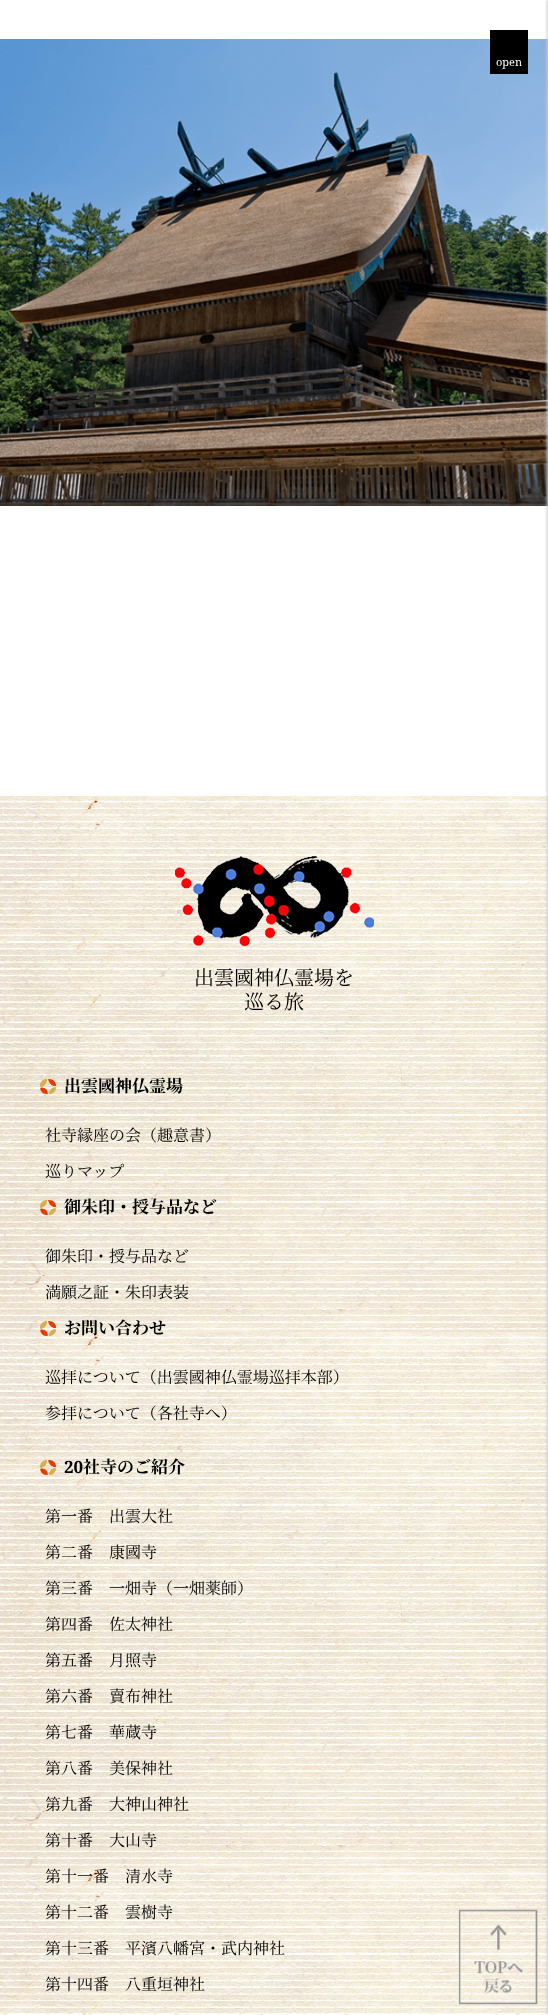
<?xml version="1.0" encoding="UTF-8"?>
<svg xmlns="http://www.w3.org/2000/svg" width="548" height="2015">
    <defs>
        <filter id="blur1" x="-50%" y="-200%" width="200%" height="500%"><feGaussianBlur stdDeviation="1.5"/></filter>
    </defs>
    <rect width="100%" height="100%" fill="#FFFFFF"/>
    <image x="0" y="39" width="548" height="467" href="img_01.png"/>
    <rect x="490" y="30" width="38" height="44" fill="#000000"/>
    <text x="496" y="66" font-family="Noto Serif" font-size="11" fill="#FFFFFF">open</text>
    <image x="0" y="796" width="548" height="1219" href="img_02.png"/>
    <rect x="547" y="0" width="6" height="2015" fill="#CCCCCC" filter="url(#blur1)"/>
    <image x="175" y="856" width="199" height="90" href="img_03.png"/>
    <text x="194" y="985" font-family="Noto Serif JP" font-size="20" fill="#000000">出雲國神仏霊場を</text>
    <text x="244" y="1009" font-family="Noto Serif JP" font-size="20" fill="#000000">巡る旅</text>
    <image x="40" y="1079" width="16" height="15" href="img_04.png"/>
    <text x="64" y="1092" font-family="Noto Serif JP" font-size="17" font-weight="700" fill="#000000">出雲國神仏霊場</text>
    <text x="45" y="1141" font-family="Noto Serif JP" font-size="16" fill="#000000">社寺縁座の会（趣意書）</text>
    <text x="45" y="1177" font-family="Noto Serif JP" font-size="16" fill="#000000">巡りマップ</text>
    <image x="40" y="1200" width="16" height="15" href="img_05.png"/>
    <text x="64" y="1213" font-family="Noto Serif JP" font-size="17" font-weight="700" fill="#000000">御朱印・授与品など</text>
    <text x="45" y="1262" font-family="Noto Serif JP" font-size="16" fill="#000000">御朱印・授与品など</text>
    <text x="45" y="1298" font-family="Noto Serif JP" font-size="16" fill="#000000">満願之証・朱印表装</text>
    <image x="40" y="1321" width="16" height="15" href="img_06.png"/>
    <text x="64" y="1334" font-family="Noto Serif JP" font-size="17" font-weight="700" fill="#000000">お問い合わせ</text>
    <text x="45" y="1383" font-family="Noto Serif JP" font-size="16" fill="#000000">巡拝について（出雲國神仏霊場巡拝本部）</text>
    <text x="45" y="1419" font-family="Noto Serif JP" font-size="16" fill="#000000">参拝について（各社寺へ）</text>
    <image x="40" y="1460" width="16" height="15" href="img_07.png"/>
    <text x="64" y="1473" font-family="Noto Serif" font-size="17" font-weight="700" fill="#000000">20</text>
    <text x="83" y="1473" font-family="Noto Serif JP" font-size="17" font-weight="700" fill="#000000">社寺のご紹介</text>
    <text x="45" y="1522" font-family="Noto Serif JP" font-size="16" fill="#000000">第一番　出雲大社</text>
    <text x="45" y="1558" font-family="Noto Serif JP" font-size="16" fill="#000000">第二番　康國寺</text>
    <text x="45" y="1594" font-family="Noto Serif JP" font-size="16" fill="#000000">第三番　一畑寺（一畑薬師）</text>
    <text x="45" y="1630" font-family="Noto Serif JP" font-size="16" fill="#000000">第四番　佐太神社</text>
    <text x="45" y="1666" font-family="Noto Serif JP" font-size="16" fill="#000000">第五番　月照寺</text>
    <text x="45" y="1702" font-family="Noto Serif JP" font-size="16" fill="#000000">第六番　賣布神社</text>
    <text x="45" y="1738" font-family="Noto Serif JP" font-size="16" fill="#000000">第七番　華蔵寺</text>
    <text x="45" y="1774" font-family="Noto Serif JP" font-size="16" fill="#000000">第八番　美保神社</text>
    <text x="45" y="1810" font-family="Noto Serif JP" font-size="16" fill="#000000">第九番　大神山神社</text>
    <text x="45" y="1846" font-family="Noto Serif JP" font-size="16" fill="#000000">第十番　大山寺</text>
    <text x="45" y="1882" font-family="Noto Serif JP" font-size="16" fill="#000000">第十一番　清水寺</text>
    <text x="45" y="1918" font-family="Noto Serif JP" font-size="16" fill="#000000">第十二番　雲樹寺</text>
    <text x="45" y="1954" font-family="Noto Serif JP" font-size="16" fill="#000000">第十三番　平濱八幡宮・武内神社</text>
    <text x="45" y="1990" font-family="Noto Serif JP" font-size="16" fill="#000000">第十四番　八重垣神社</text>
    <image x="458" y="1909" width="80" height="96" href="img_08.png"/>
</svg>
